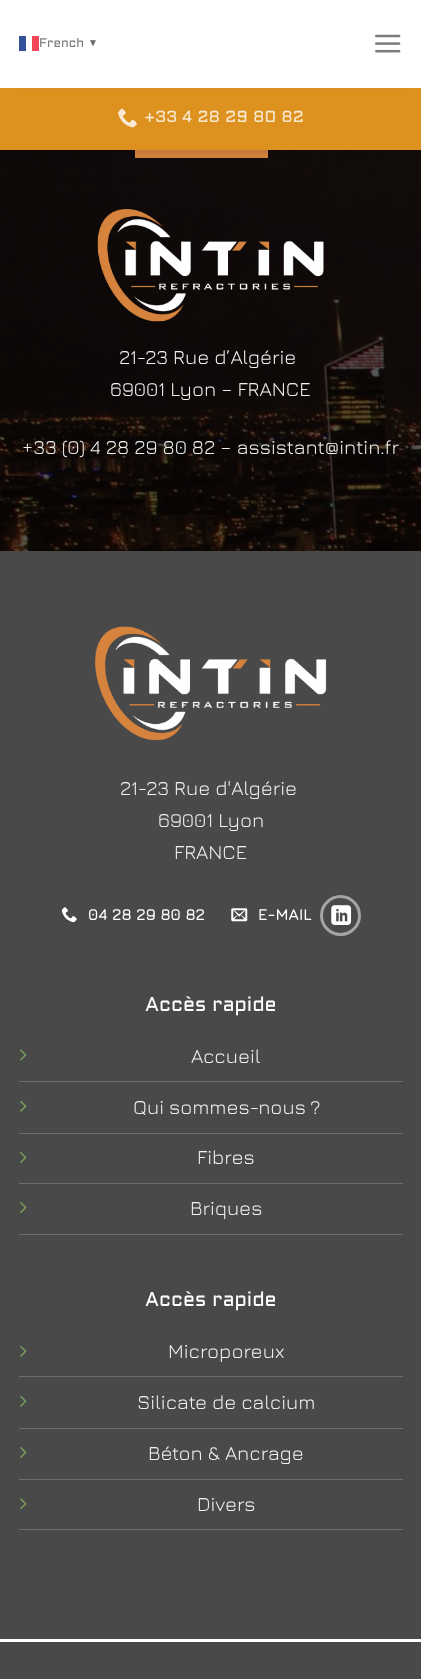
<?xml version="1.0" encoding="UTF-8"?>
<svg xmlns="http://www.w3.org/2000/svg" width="421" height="1679">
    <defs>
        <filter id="blur1" x="-50%" y="-200%" width="200%" height="500%"><feGaussianBlur stdDeviation="6"/></filter>
    </defs>
    <rect width="100%" height="100%" fill="#FFFFFF"/>
    <image x="0" y="150" width="421" height="401" href="img_03.png"/>
    <rect x="135" y="150" width="133" height="8" fill="#D6843E"/>
    <rect x="1" y="1" width="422" height="150" fill="#000000" fill-opacity="0.15" filter="url(#blur1)"/>
    <rect x="0" y="0" width="421" height="88" fill="#FFFFFF"/>
    <rect x="19" y="36" width="7" height="15" fill="#335199"/>
    <rect x="32" y="36" width="7" height="15" fill="#F54659"/>
    <text x="39" y="47" font-family="Aldrich" font-size="12.5" fill="#7D7D7D">French</text>
    <text x="88" y="46" font-family="Liberation Sans" font-size="10" font-weight="700" fill="#666666">▼</text>
    <image x="375" y="34" width="26" height="19" href="img_01.png"/>
    <rect x="0" y="88" width="421" height="62" fill="#DD911F"/>
    <rect x="19" y="88" width="384" height="1" fill="#D38E28"/>
    <image x="118" y="108" width="19" height="20" href="img_02.png"/>
    <text x="144" y="122" font-family="Aldrich" font-size="16" letter-spacing="0.3" fill="#F8E9D2">+33 4 28 29 80 82</text>
    <image x="97" y="209" width="227" height="113" href="img_04.png"/>
    <text x="119" y="364" font-family="Jura" font-size="20" font-weight="300" fill="#F1F1F1">21-23 Rue d’Algérie</text>
    <text x="110" y="396" font-family="Jura" font-size="20" font-weight="300" fill="#F1F1F1">69001 Lyon – FRANCE</text>
    <text x="22" y="454" font-family="Jura" font-size="20" font-weight="300" fill="#F1F1F1">+33 (0) 4 28 29 80 82 – assistant@intin.fr</text>
    <rect x="0" y="551" width="421" height="1128" fill="#49494A"/>
    <image x="95" y="626" width="232" height="115" href="img_05.png"/>
    <text x="120" y="795" font-family="Jura" font-size="20" font-weight="300" fill="#F1F1F1">21-23 Rue d'Algérie</text>
    <text x="158" y="827" font-family="Jura" font-size="20" font-weight="300" fill="#F1F1F1">69001 Lyon</text>
    <text x="174" y="859" font-family="Jura" font-size="20" font-weight="300" fill="#F1F1F1">FRANCE</text>
    <image x="61" y="907" width="16" height="16" href="img_06.png"/>
    <text x="88" y="920" font-family="Jura" font-size="16" font-weight="700" letter-spacing="0.5" fill="#FFFFFF">04 28 29 80 82</text>
    <image x="231" y="908" width="17" height="14" href="img_07.png"/>
    <text x="258" y="920" font-family="Jura" font-size="16" font-weight="700" letter-spacing="0.5" fill="#FFFFFF">E-MAIL</text>
    <circle cx="340.5" cy="915.5" r="19" fill="none" stroke="#A4A4A5" stroke-width="3"/>
    <image x="331" y="905" width="21" height="20" href="img_08.png"/>
    <text x="145" y="1011" font-family="Aldrich" font-size="20" fill="#FFFFFF">Accès rapide</text>
    <rect x="19" y="1081" width="384" height="1" fill="#6D6D6E"/>
    <image x="20" y="1049" width="7" height="12" href="img_09.png"/>
    <text x="191" y="1063" font-family="Jura" font-size="20" font-weight="300" fill="#F1F1F1">Accueil</text>
    <rect x="19" y="1133" width="384" height="1" fill="#6D6D6E"/>
    <image x="20" y="1100" width="7" height="12" href="img_10.png"/>
    <text x="133" y="1114" font-family="Jura" font-size="20" font-weight="300" fill="#F1F1F1">Qui sommes-nous ?</text>
    <rect x="19" y="1183" width="384" height="1" fill="#6D6D6E"/>
    <image x="20" y="1152" width="7" height="11" href="img_11.png"/>
    <text x="197" y="1164" font-family="Jura" font-size="20" font-weight="300" fill="#F1F1F1">Fibres</text>
    <rect x="19" y="1234" width="384" height="1" fill="#6D6D6E"/>
    <image x="20" y="1202" width="7" height="11" href="img_11.png"/>
    <text x="190" y="1215" font-family="Jura" font-size="20" font-weight="300" fill="#F1F1F1">Briques</text>
    <text x="145" y="1306" font-family="Aldrich" font-size="20" fill="#FFFFFF">Accès rapide</text>
    <rect x="19" y="1376" width="384" height="1" fill="#6D6D6E"/>
    <image x="20" y="1345" width="7" height="12" href="img_10.png"/>
    <text x="168" y="1358" font-family="Jura" font-size="20" font-weight="300" fill="#F1F1F1">Microporeux</text>
    <rect x="19" y="1428" width="384" height="1" fill="#6D6D6E"/>
    <image x="20" y="1395" width="7" height="12" href="img_10.png"/>
    <text x="137" y="1409" font-family="Jura" font-size="20" font-weight="300" fill="#F1F1F1">Silicate de calcium</text>
    <rect x="19" y="1479" width="384" height="1" fill="#6D6D6E"/>
    <image x="20" y="1447" width="7" height="11" href="img_11.png"/>
    <text x="148" y="1460" font-family="Jura" font-size="20" font-weight="300" fill="#F1F1F1">Béton &amp; Ancrage</text>
    <rect x="19" y="1529" width="384" height="1" fill="#6D6D6E"/>
    <image x="20" y="1498" width="7" height="12" href="img_12.png"/>
    <text x="197" y="1511" font-family="Jura" font-size="20" font-weight="300" fill="#F1F1F1">Divers</text>
    <rect x="0" y="1639" width="421" height="3" fill="#FFFFFF"/>
</svg>
